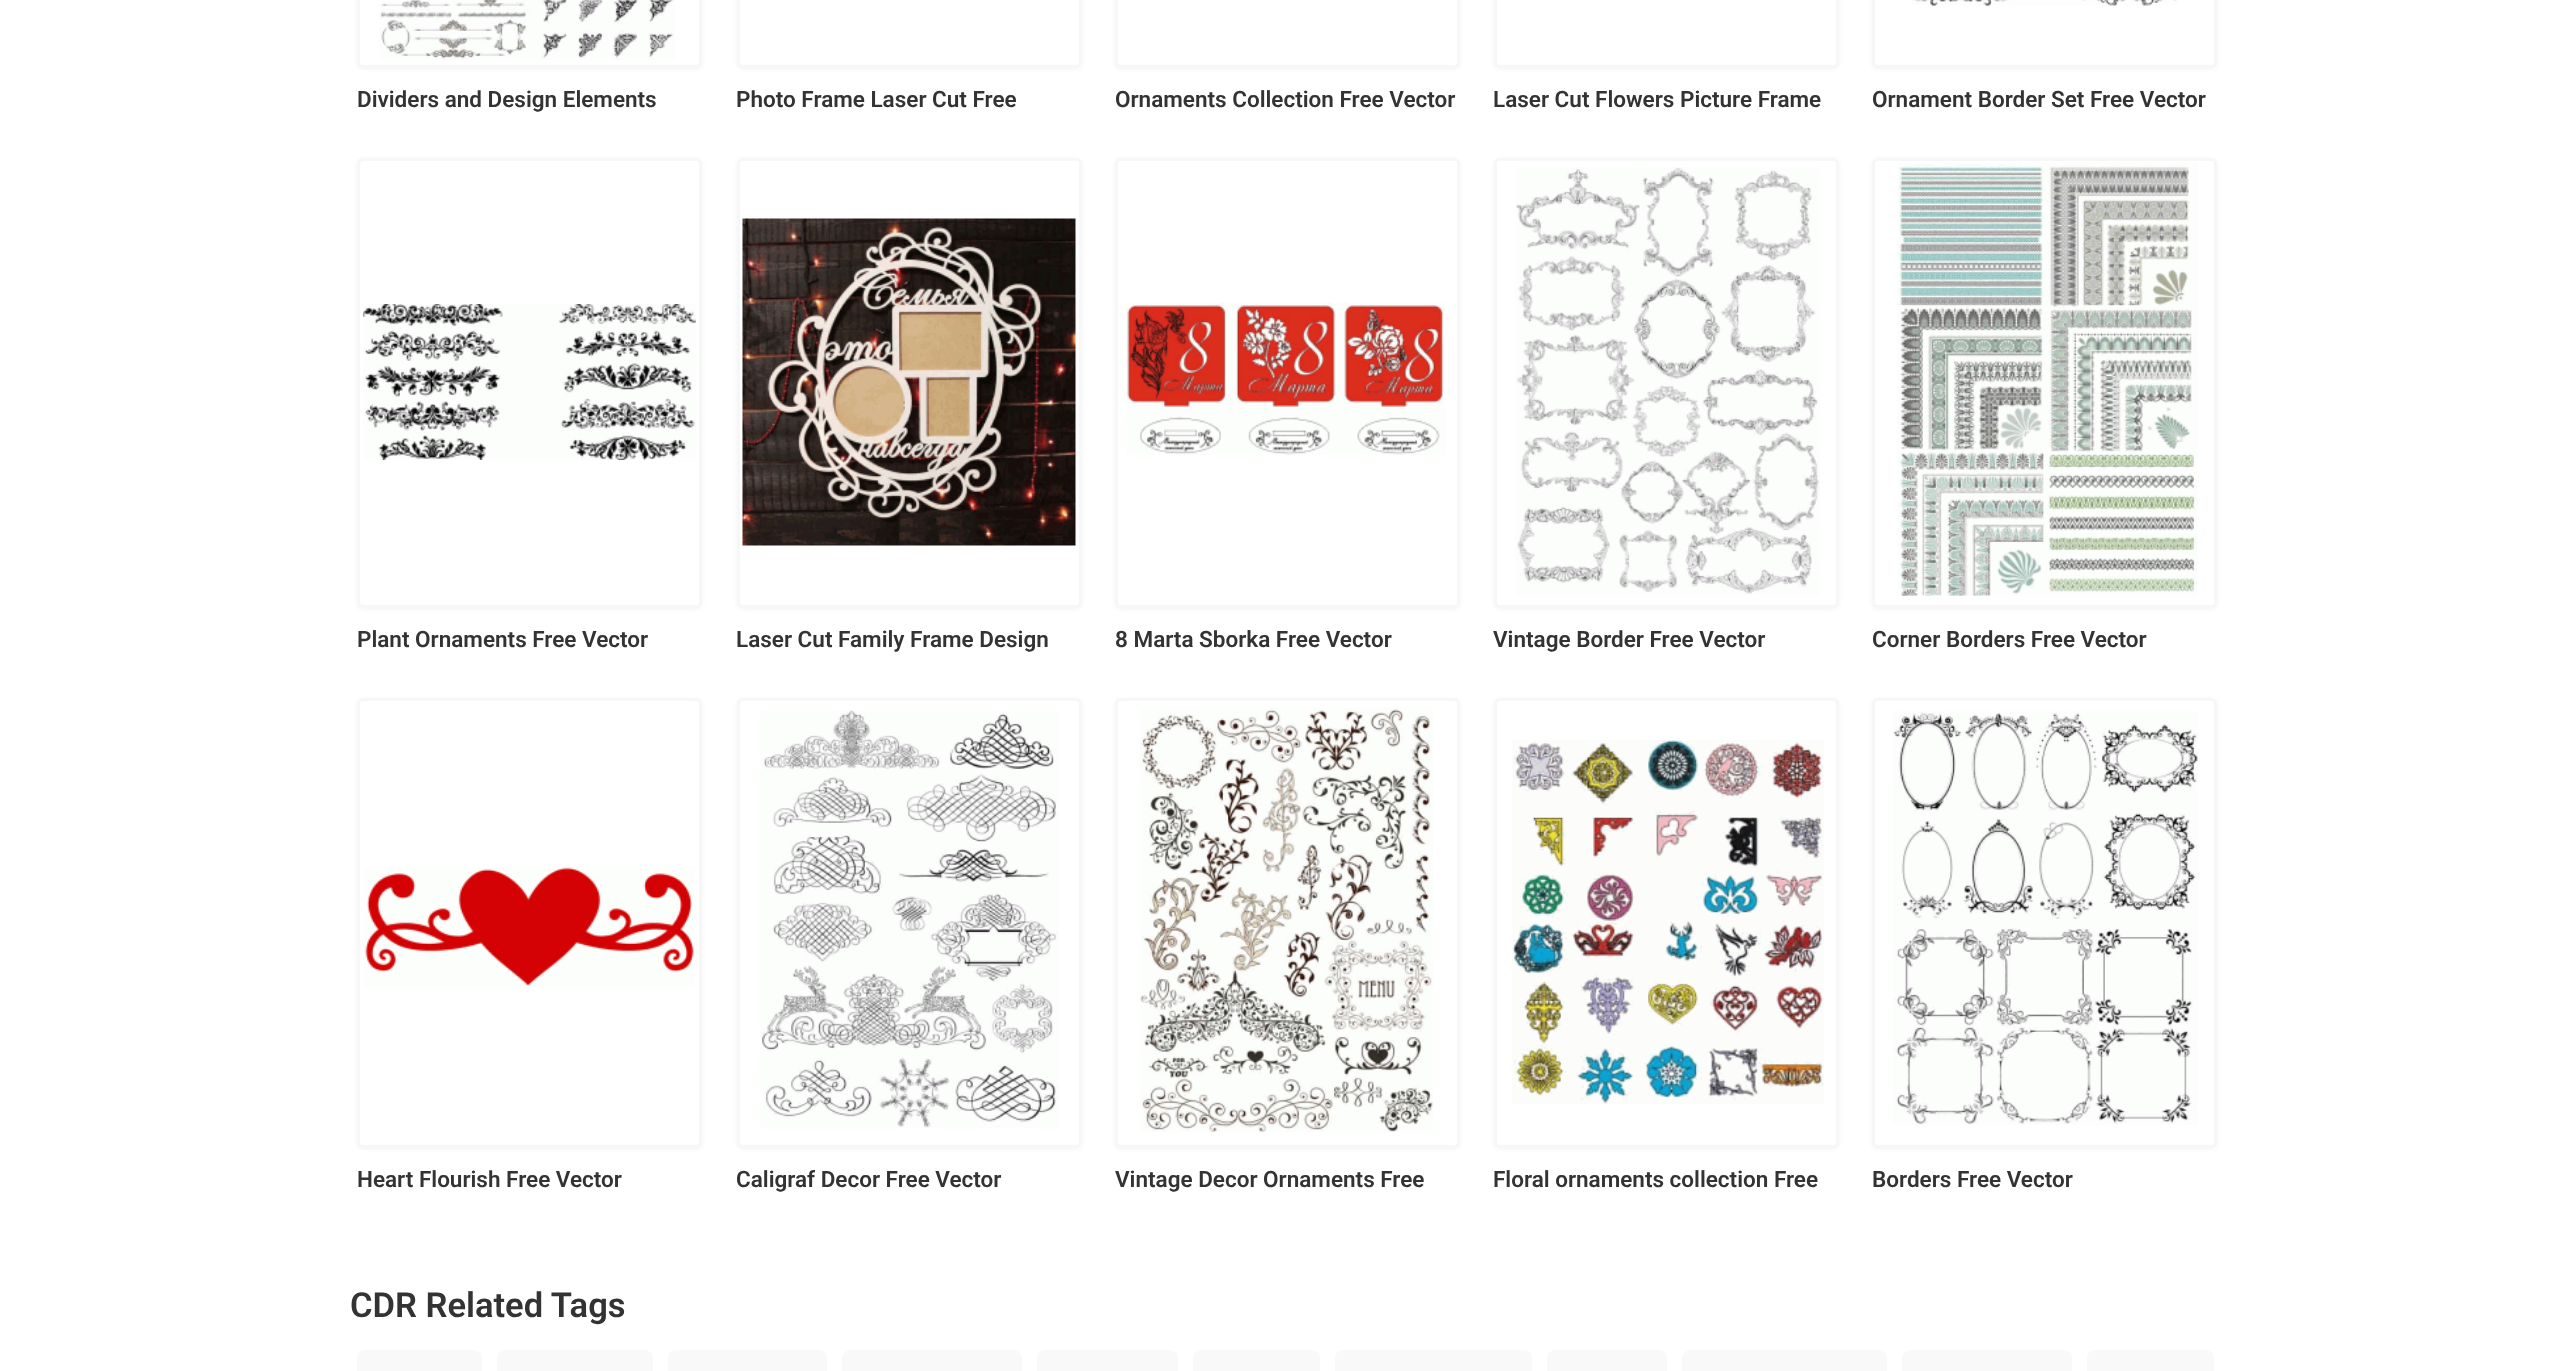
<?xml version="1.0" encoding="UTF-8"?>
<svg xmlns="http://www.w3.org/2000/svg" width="2574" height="1371">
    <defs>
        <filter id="blur1" x="-50%" y="-200%" width="200%" height="500%"><feGaussianBlur stdDeviation="2"/></filter>
        <clipPath id="clip1"><rect x="737" y="1155" width="345" height="48"/></clipPath>
    </defs>
    <rect width="100%" height="100%" fill="#FFFFFF"/>
    <rect x="357" y="-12" width="345" height="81" rx="6" fill="#000000" fill-opacity="0.05" filter="url(#blur1)"/>
    <rect x="358.5" y="-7.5" width="342" height="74" rx="4.5" fill="#FFFFFF" stroke="#F7F7F7" stroke-width="3"/>
    <image x="379" y="0" width="296" height="60" href="img_01.png"/>
    <text x="357" y="107" font-family="Roboto" font-size="22.5" font-weight="600" fill="#333333">Dividers and Design Elements</text>
    <rect x="737" y="-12" width="345" height="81" rx="6" fill="#000000" fill-opacity="0.05" filter="url(#blur1)"/>
    <rect x="738.5" y="-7.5" width="342" height="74" rx="4.5" fill="#FFFFFF" stroke="#F7F7F7" stroke-width="3"/>
    <text x="736" y="107" font-family="Roboto" font-size="22.5" font-weight="600" fill="#333333">Photo Frame Laser Cut Free</text>
    <rect x="1115" y="-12" width="345" height="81" rx="6" fill="#000000" fill-opacity="0.05" filter="url(#blur1)"/>
    <rect x="1116.5" y="-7.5" width="342" height="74" rx="4.5" fill="#FFFFFF" stroke="#F7F7F7" stroke-width="3"/>
    <text x="1115" y="107" font-family="Roboto" font-size="22.5" font-weight="600" fill="#333333">Ornaments Collection Free Vector</text>
    <rect x="1494" y="-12" width="345" height="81" rx="6" fill="#000000" fill-opacity="0.05" filter="url(#blur1)"/>
    <rect x="1495.5" y="-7.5" width="342" height="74" rx="4.5" fill="#FFFFFF" stroke="#F7F7F7" stroke-width="3"/>
    <text x="1493" y="107" font-family="Roboto" font-size="22.5" font-weight="600" fill="#333333">Laser Cut Flowers Picture Frame</text>
    <rect x="1872" y="-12" width="345" height="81" rx="6" fill="#000000" fill-opacity="0.05" filter="url(#blur1)"/>
    <rect x="1873.5" y="-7.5" width="342" height="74" rx="4.5" fill="#FFFFFF" stroke="#F7F7F7" stroke-width="3"/>
    <image x="1912" y="0" width="266" height="6" href="img_02.png"/>
    <text x="1872" y="107" font-family="Roboto" font-size="22.5" font-weight="600" fill="#333333">Ornament Border Set Free Vector</text>
    <rect x="357" y="159" width="345" height="450" rx="6" fill="#000000" fill-opacity="0.05" filter="url(#blur1)"/>
    <rect x="358.5" y="159.5" width="342" height="447" rx="4.5" fill="#FFFFFF" stroke="#F7F7F7" stroke-width="3"/>
    <image x="363" y="304" width="333" height="156" href="img_03.png"/>
    <text x="357" y="647" font-family="Roboto" font-size="22.5" font-weight="600" fill="#333333">Plant Ornaments Free Vector</text>
    <rect x="737" y="159" width="345" height="450" rx="6" fill="#000000" fill-opacity="0.05" filter="url(#blur1)"/>
    <rect x="738.5" y="159.5" width="342" height="447" rx="4.5" fill="#FFFFFF" stroke="#F7F7F7" stroke-width="3"/>
    <image x="742" y="218" width="334" height="328" href="img_04.png"/>
    <text x="736" y="647" font-family="Roboto" font-size="22.5" font-weight="600" fill="#333333">Laser Cut Family Frame Design</text>
    <rect x="1115" y="159" width="345" height="450" rx="6" fill="#000000" fill-opacity="0.05" filter="url(#blur1)"/>
    <rect x="1116.5" y="159.5" width="342" height="447" rx="4.5" fill="#FFFFFF" stroke="#F7F7F7" stroke-width="3"/>
    <image x="1126" y="302" width="320" height="153" href="img_05.png"/>
    <text x="1115" y="647" font-family="Roboto" font-size="22.5" font-weight="600" fill="#333333">8 Marta Sborka Free Vector</text>
    <rect x="1494" y="159" width="345" height="450" rx="6" fill="#000000" fill-opacity="0.05" filter="url(#blur1)"/>
    <rect x="1495.5" y="159.5" width="342" height="447" rx="4.5" fill="#FFFFFF" stroke="#F7F7F7" stroke-width="3"/>
    <image x="1515" y="167" width="305" height="428" href="img_06.png"/>
    <text x="1493" y="647" font-family="Roboto" font-size="22.5" font-weight="600" fill="#333333">Vintage Border Free Vector</text>
    <rect x="1872" y="159" width="345" height="450" rx="6" fill="#000000" fill-opacity="0.05" filter="url(#blur1)"/>
    <rect x="1873.5" y="159.5" width="342" height="447" rx="4.5" fill="#FFFFFF" stroke="#F7F7F7" stroke-width="3"/>
    <image x="1897" y="163" width="301" height="433" href="img_07.png"/>
    <text x="1872" y="647" font-family="Roboto" font-size="22.5" font-weight="600" fill="#333333">Corner Borders Free Vector</text>
    <rect x="357" y="699" width="345" height="450" rx="6" fill="#000000" fill-opacity="0.05" filter="url(#blur1)"/>
    <rect x="358.5" y="699.5" width="342" height="447" rx="4.5" fill="#FFFFFF" stroke="#F7F7F7" stroke-width="3"/>
    <image x="364" y="867" width="331" height="120" href="img_08.png"/>
    <text x="357" y="1187" font-family="Roboto" font-size="22.5" font-weight="600" fill="#333333">Heart Flourish Free Vector</text>
    <rect x="737" y="699" width="345" height="450" rx="6" fill="#000000" fill-opacity="0.05" filter="url(#blur1)"/>
    <rect x="738.5" y="699.5" width="342" height="447" rx="4.5" fill="#FFFFFF" stroke="#F7F7F7" stroke-width="3"/>
    <image x="760" y="710" width="299" height="418" href="img_09.png"/>
    <g clip-path="url(#clip1)">
        <text x="736" y="1187" font-family="Roboto" font-size="22.5" font-weight="600" fill="#333333">Caligraf Decor Free Vector</text>
    </g>
    <rect x="1115" y="699" width="345" height="450" rx="6" fill="#000000" fill-opacity="0.05" filter="url(#blur1)"/>
    <rect x="1116.5" y="699.5" width="342" height="447" rx="4.5" fill="#FFFFFF" stroke="#F7F7F7" stroke-width="3"/>
    <image x="1140" y="708" width="293" height="424" href="img_10.png"/>
    <text x="1115" y="1187" font-family="Roboto" font-size="22.5" font-weight="600" fill="#333333">Vintage Decor Ornaments Free</text>
    <rect x="1494" y="699" width="345" height="450" rx="6" fill="#000000" fill-opacity="0.05" filter="url(#blur1)"/>
    <rect x="1495.5" y="699.5" width="342" height="447" rx="4.5" fill="#FFFFFF" stroke="#F7F7F7" stroke-width="3"/>
    <image x="1512" y="740" width="312" height="364" href="img_11.png"/>
    <text x="1493" y="1187" font-family="Roboto" font-size="22.5" font-weight="600" fill="#333333">Floral ornaments collection Free</text>
    <rect x="1872" y="699" width="345" height="450" rx="6" fill="#000000" fill-opacity="0.05" filter="url(#blur1)"/>
    <rect x="1873.5" y="699.5" width="342" height="447" rx="4.5" fill="#FFFFFF" stroke="#F7F7F7" stroke-width="3"/>
    <image x="1893" y="711" width="305" height="414" href="img_12.png"/>
    <text x="1872" y="1187" font-family="Roboto" font-size="22.5" font-weight="600" fill="#333333">Borders Free Vector</text>
    <text x="350" y="1317" font-family="Roboto" font-size="34.5" font-weight="600" fill="#333333">CDR Related Tags</text>
    <rect x="357" y="1350" width="125" height="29" rx="8" fill="#F9F9F9"/>
    <rect x="497" y="1350" width="156" height="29" rx="8" fill="#F9F9F9"/>
    <rect x="668" y="1350" width="159" height="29" rx="8" fill="#F9F9F9"/>
    <rect x="842" y="1350" width="180" height="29" rx="8" fill="#F9F9F9"/>
    <rect x="1037" y="1350" width="141" height="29" rx="8" fill="#F9F9F9"/>
    <rect x="1193" y="1350" width="127" height="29" rx="8" fill="#F9F9F9"/>
    <rect x="1335" y="1350" width="197" height="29" rx="8" fill="#F9F9F9"/>
    <rect x="1547" y="1350" width="120" height="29" rx="8" fill="#F9F9F9"/>
    <rect x="1682" y="1350" width="205" height="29" rx="8" fill="#F9F9F9"/>
    <rect x="1902" y="1350" width="170" height="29" rx="8" fill="#F9F9F9"/>
    <rect x="2087" y="1350" width="127" height="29" rx="8" fill="#F9F9F9"/>
</svg>
